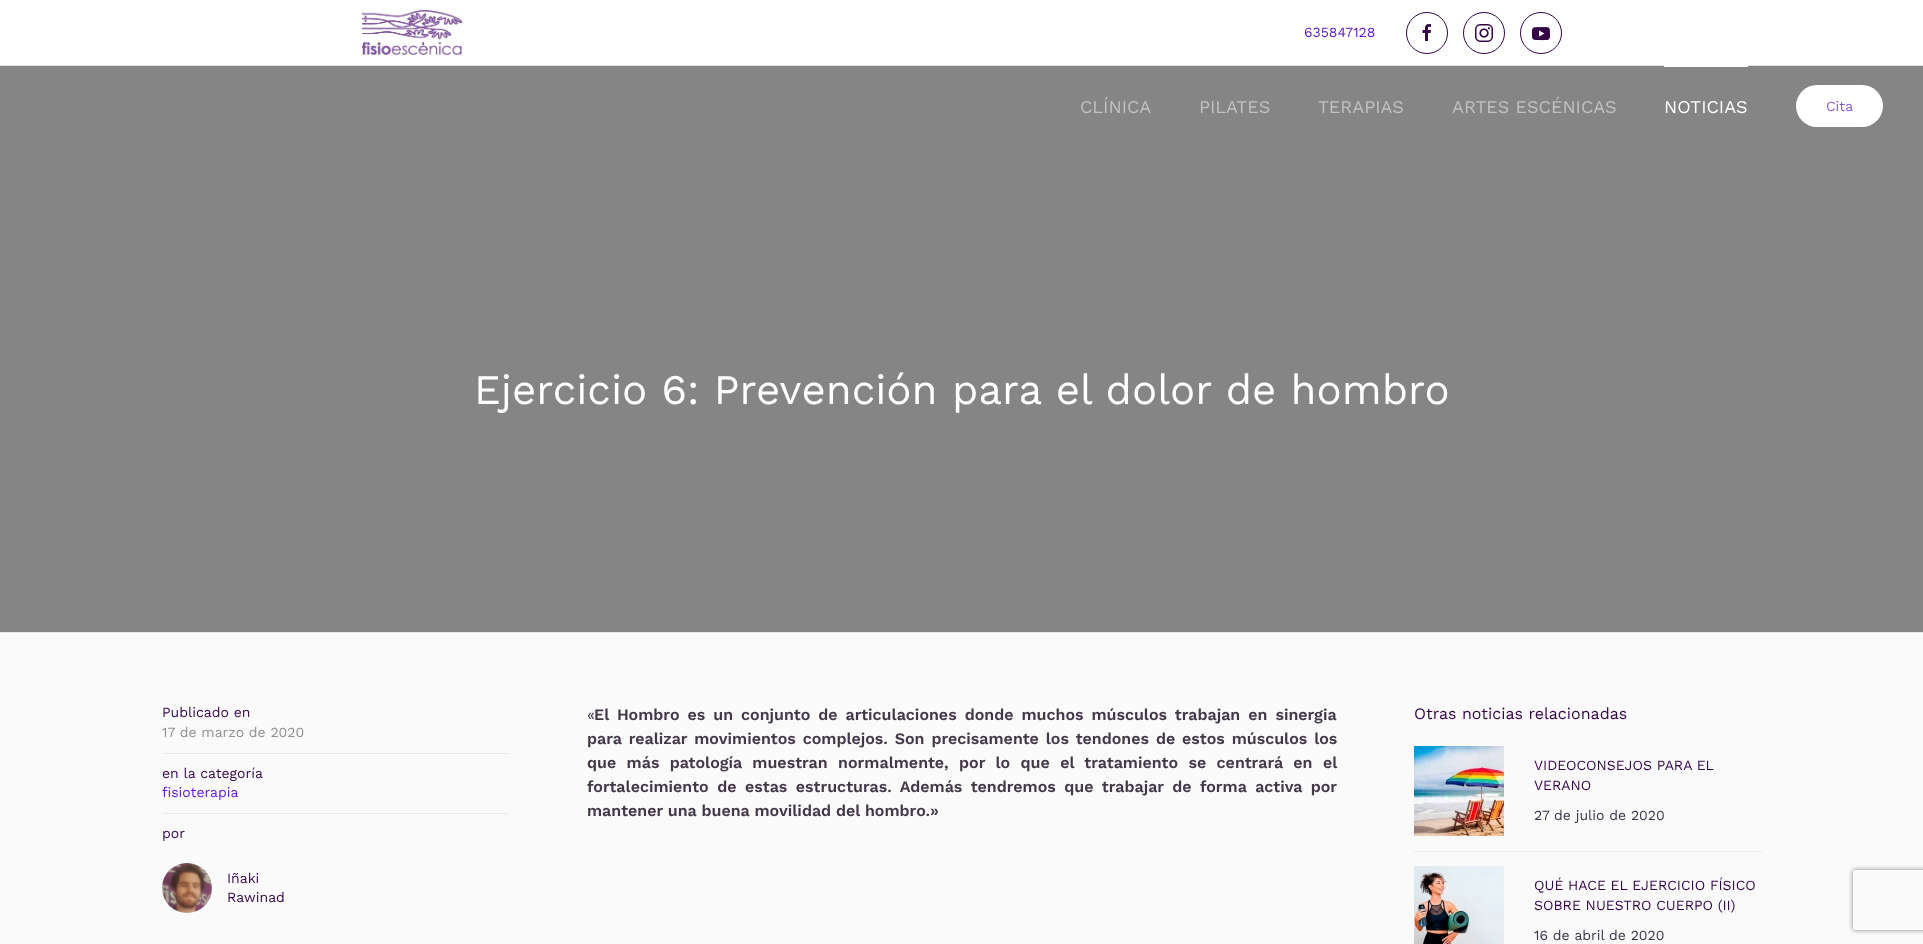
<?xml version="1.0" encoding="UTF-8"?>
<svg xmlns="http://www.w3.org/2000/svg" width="1923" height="944">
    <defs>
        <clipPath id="clip1"><path d="M 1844 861 H 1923 V 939 H 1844 Z M 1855 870 H 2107 C 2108 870 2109 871 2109 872 V 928 C 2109 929 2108 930 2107 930 H 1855 C 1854 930 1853 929 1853 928 V 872 C 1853 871 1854 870 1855 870 Z" clip-rule="evenodd"/></clipPath>
        <filter id="blur1" x="-50%" y="-200%" width="200%" height="500%"><feGaussianBlur stdDeviation="2.5"/></filter>
    </defs>
    <rect width="100%" height="100%" fill="#FFFFFF"/>
    <rect x="0" y="65" width="1923" height="1" fill="#E2E2E2"/>
    <image x="362" y="10" width="100" height="45" href="img_01.png"/>
    <text x="1304" y="37" font-family="Work Sans" font-size="14" fill="#621CD3">635847128</text>
    <circle cx="1427" cy="33" r="20.5" fill="none" stroke="#340648"/>
    <image x="1422" y="24" width="9" height="17" href="img_02.png"/>
    <circle cx="1484" cy="33" r="20.5" fill="none" stroke="#340648"/>
    <image x="1475" y="24" width="18" height="18" href="img_03.png"/>
    <circle cx="1541" cy="33" r="20.5" fill="none" stroke="#340648"/>
    <image x="1532" y="27" width="18" height="14" href="img_04.png"/>
    <rect x="0" y="66" width="1923" height="566" fill="#858585"/>
    <text x="1080" y="113" font-family="Work Sans" font-size="18" fill="#C2C2C2">CLÍNICA</text>
    <text x="1199" y="113" font-family="Work Sans" font-size="18" fill="#C2C2C2">PILATES</text>
    <text x="1318" y="113" font-family="Work Sans" font-size="18" fill="#C2C2C2">TERAPIAS</text>
    <text x="1452" y="113" font-family="Work Sans" font-size="18" fill="#C2C2C2">ARTES ESCÉNICAS</text>
    <rect x="1664" y="65" width="84" height="2" fill="#FFFFFF"/>
    <text x="1664" y="113" font-family="Work Sans" font-size="18" fill="#FFFFFF">NOTICIAS</text>
    <rect x="1796" y="85" width="87" height="42" rx="21" fill="#FFFFFF"/>
    <text x="1826" y="111" font-family="Work Sans" font-size="14" fill="#8659CF">Cita</text>
    <text x="474" y="404" font-family="Work Sans" font-size="42" fill="#FFFFFF">Ejercicio 6: Prevención para el dolor de hombro</text>
    <rect x="0" y="633" width="1923" height="311" fill="#FAFAFA"/>
    <rect x="0" y="632" width="1923" height="1" fill="#EAEAEA"/>
    <text x="162" y="717" font-family="Work Sans" font-size="14" fill="#340648">Publicado en</text>
    <text x="162" y="737" font-family="Work Sans" font-size="14" fill="#909090">17 de marzo de 2020</text>
    <rect x="162" y="753" width="347" height="1" fill="#EAEAEA"/>
    <text x="162" y="778" font-family="Work Sans" font-size="14" fill="#340648">en la categoría</text>
    <text x="162" y="797" font-family="Work Sans" font-size="14" fill="#621CD3">fisioterapia</text>
    <rect x="162" y="813" width="347" height="1" fill="#EAEAEA"/>
    <text x="162" y="838" font-family="Work Sans" font-size="14" fill="#340648">por</text>
    <image x="162" y="863" width="50" height="50" href="img_05.png"/>
    <text font-family="Work Sans" font-size="14" fill="#340648">
        <tspan x="227" y="883">Iñaki</tspan>
        <tspan x="227" y="902">Rawinad</tspan>
    </text>
    <text x="587" y="720" font-family="Work Sans" font-size="16" fill="#433848">«</text>
    <text x="594" y="720" word-spacing="3.1" font-family="Work Sans" font-size="16" font-weight="600" fill="#433848">El Hombro es un conjunto de articulaciones donde muchos músculos trabajan en sinergia</text>
    <text font-family="Work Sans" font-size="16" font-weight="600" fill="#433848">
        <tspan x="587" y="744" word-spacing="2">para realizar movimientos complejos. Son precisamente los tendones de estos músculos los</tspan>
        <tspan x="587" y="768" word-spacing="5.5">que más patología muestran normalmente, por lo que el tratamiento se centrará en el</tspan>
        <tspan x="587" y="792" word-spacing="3.6">fortalecimiento de estas estructuras. Además tendremos que trabajar de forma activa por</tspan>
        <tspan x="587" y="816">mantener una buena movilidad del hombro.»</tspan>
    </text>
    <text x="1414" y="719" font-family="Work Sans" font-size="16" fill="#340648">Otras noticias relacionadas</text>
    <image x="1414" y="746" width="90" height="90" href="img_06.png"/>
    <text font-family="Work Sans" font-size="14" fill="#340648">
        <tspan x="1534" y="770">VIDEOCONSEJOS PARA EL</tspan>
        <tspan x="1534" y="790">VERANO</tspan>
    </text>
    <text x="1534" y="820" font-family="Work Sans" font-size="14" fill="#3B324A">27 de julio de 2020</text>
    <rect x="1414" y="851" width="348" height="1" fill="#EAEAEA"/>
    <image x="1414" y="866" width="90" height="78" href="img_07.png"/>
    <text font-family="Work Sans" font-size="14" fill="#340648">
        <tspan x="1534" y="890">QUÉ HACE EL EJERCICIO FÍSICO</tspan>
        <tspan x="1534" y="910">SOBRE NUESTRO CUERPO (II)</tspan>
    </text>
    <text x="1534" y="940" font-family="Work Sans" font-size="14" fill="#3B324A">16 de abril de 2020</text>
    <g clip-path="url(#clip1)">
        <rect x="1853" y="870" width="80" height="60" rx="2" fill="#808080" filter="url(#blur1)"/>
    </g>
</svg>
